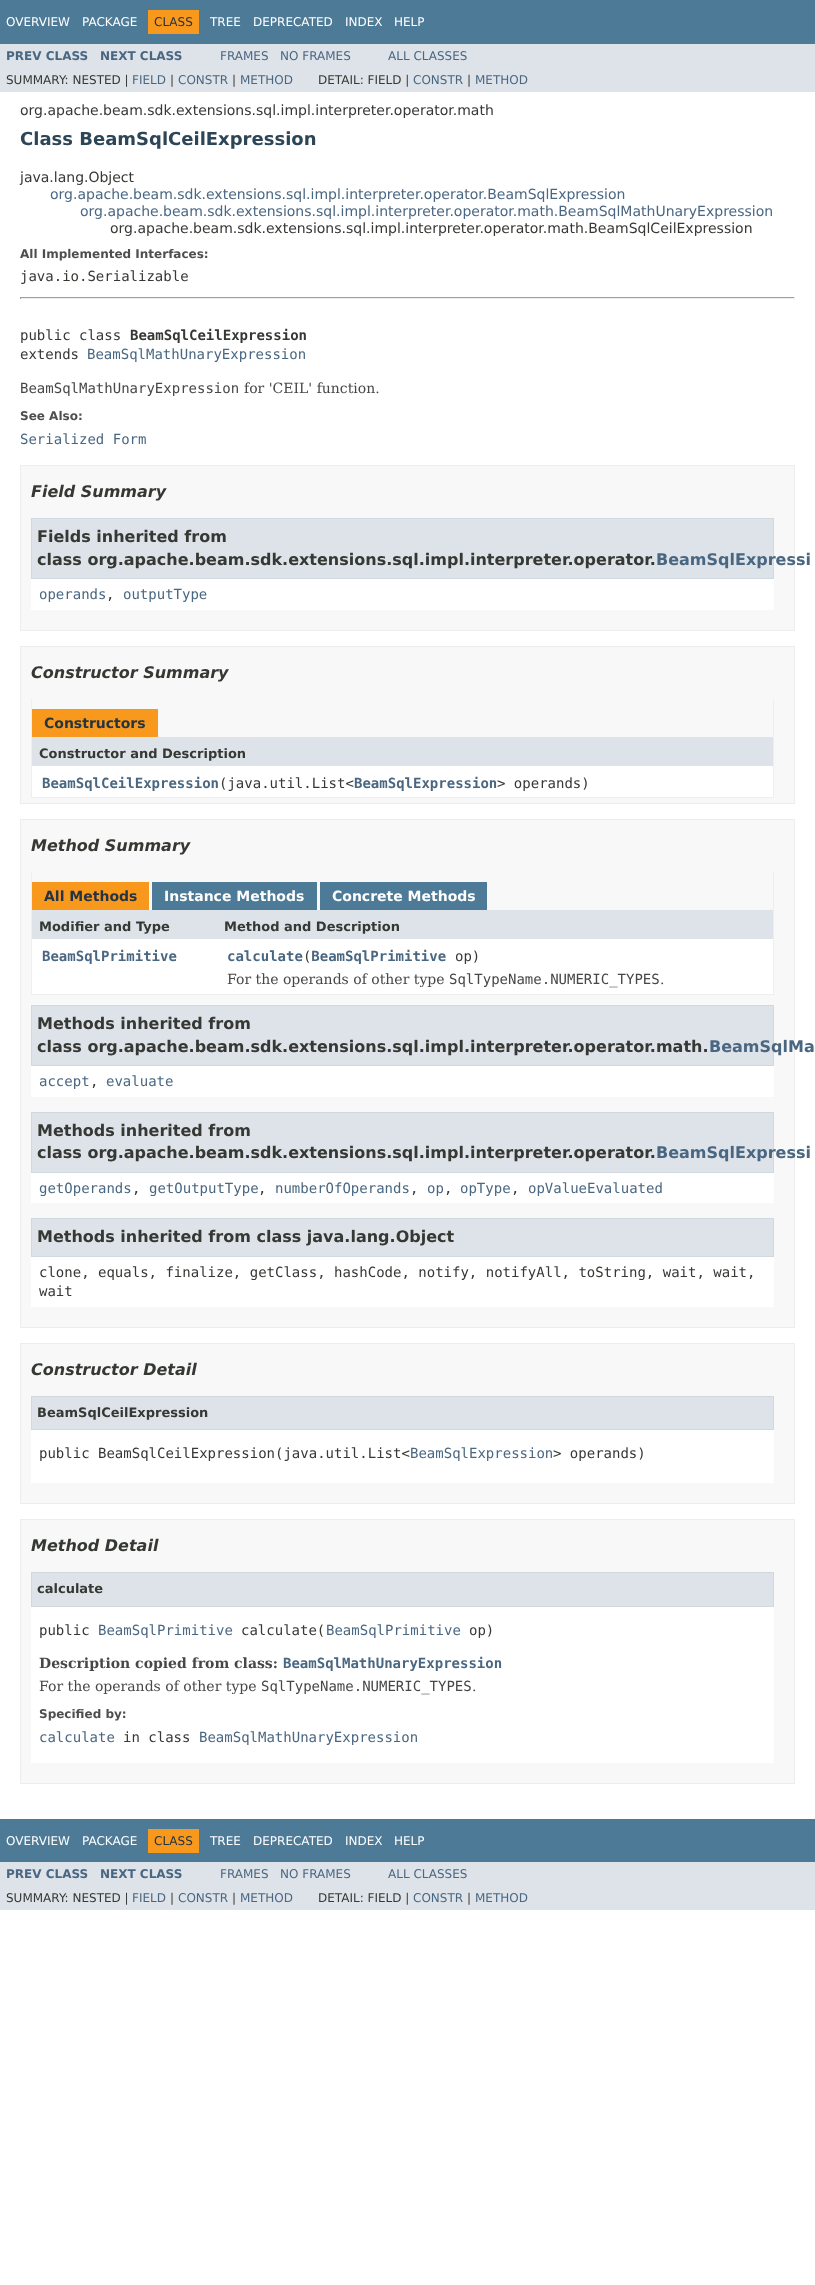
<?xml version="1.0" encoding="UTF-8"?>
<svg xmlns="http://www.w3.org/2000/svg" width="815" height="2285">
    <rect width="100%" height="100%" fill="#FFFFFF"/>
    <rect x="0" y="0" width="815" height="44" fill="#4D7A97"/>
    <text x="6" y="26" font-family="DejaVu Sans" font-size="12" fill="#FFFFFF">OVERVIEW</text>
    <text x="82" y="26" font-family="DejaVu Sans" font-size="12" fill="#FFFFFF">PACKAGE</text>
    <rect x="148" y="10" width="51" height="24" fill="#F8981D"/>
    <text x="154" y="26" font-family="DejaVu Sans" font-size="12" fill="#253441">CLASS</text>
    <text x="210" y="26" font-family="DejaVu Sans" font-size="12" fill="#FFFFFF">TREE</text>
    <text x="253" y="26" font-family="DejaVu Sans" font-size="12" fill="#FFFFFF">DEPRECATED</text>
    <text x="345" y="26" font-family="DejaVu Sans" font-size="12" fill="#FFFFFF">INDEX</text>
    <text x="394" y="26" font-family="DejaVu Sans" font-size="12" fill="#FFFFFF">HELP</text>
    <rect x="0" y="44" width="815" height="48" fill="#DEE3E9"/>
    <text x="6" y="60" font-family="DejaVu Sans" font-size="12" font-weight="700" fill="#4A6782">PREV CLASS</text>
    <text x="100" y="60" font-family="DejaVu Sans" font-size="12" font-weight="700" fill="#4A6782">NEXT CLASS</text>
    <text x="220" y="60" font-family="DejaVu Sans" font-size="12" fill="#4A6782">FRAMES</text>
    <text x="280" y="60" font-family="DejaVu Sans" font-size="12" fill="#4A6782">NO FRAMES</text>
    <text x="388" y="60" font-family="DejaVu Sans" font-size="12" fill="#4A6782">ALL CLASSES</text>
    <text x="6" y="84" font-family="DejaVu Sans" font-size="12" fill="#353833">SUMMARY: NESTED |</text>
    <text x="132" y="84" font-family="DejaVu Sans" font-size="12" fill="#4A6782">FIELD</text>
    <text x="170" y="84" font-family="DejaVu Sans" font-size="12" fill="#353833">|</text>
    <text x="178" y="84" font-family="DejaVu Sans" font-size="12" fill="#4A6782">CONSTR</text>
    <text x="232" y="84" font-family="DejaVu Sans" font-size="12" fill="#353833">|</text>
    <text x="240" y="84" font-family="DejaVu Sans" font-size="12" fill="#4A6782">METHOD</text>
    <text x="318" y="84" font-family="DejaVu Sans" font-size="12" fill="#353833">DETAIL: FIELD |</text>
    <text x="413" y="84" font-family="DejaVu Sans" font-size="12" fill="#4A6782">CONSTR</text>
    <text x="467" y="84" font-family="DejaVu Sans" font-size="12" fill="#353833">|</text>
    <text x="475" y="84" font-family="DejaVu Sans" font-size="12" fill="#4A6782">METHOD</text>
    <text x="20" y="115" font-family="DejaVu Sans" font-size="14" fill="#353833">org.apache.beam.sdk.extensions.sql.impl.interpreter.operator.math</text>
    <text x="20" y="145" font-family="DejaVu Sans" font-size="18" font-weight="700" fill="#2C4557">Class BeamSqlCeilExpression</text>
    <text x="20" y="182" font-family="DejaVu Sans" font-size="14" fill="#353833">java.lang.Object</text>
    <text x="50" y="199" font-family="DejaVu Sans" font-size="14" fill="#4A6782">org.apache.beam.sdk.extensions.sql.impl.interpreter.operator.BeamSqlExpression</text>
    <text x="80" y="216" font-family="DejaVu Sans" font-size="14" fill="#4A6782">org.apache.beam.sdk.extensions.sql.impl.interpreter.operator.math.BeamSqlMathUnaryExpression</text>
    <text x="110" y="233" font-family="DejaVu Sans" font-size="14" fill="#353833">org.apache.beam.sdk.extensions.sql.impl.interpreter.operator.math.BeamSqlCeilExpression</text>
    <text x="20" y="258" font-family="DejaVu Sans" font-size="12" font-weight="700" fill="#4E4E4E">All Implemented Interfaces:</text>
    <text x="20" y="281" font-family="DejaVu Sans Mono" font-size="14" fill="#353833">java.io.Serializable</text>
    <rect x="20" y="297" width="775" height="1" fill="#9F9F9F"/>
    <rect x="794" y="297" width="1" height="2" fill="#EEEEEE"/>
    <rect x="20" y="298" width="775" height="1" fill="#EEEEEE"/>
    <rect x="20" y="297" width="1" height="2" fill="#9F9F9F"/>
    <text x="20" y="340" font-family="DejaVu Sans Mono" font-size="14" fill="#353833">public class</text>
    <text x="130" y="340" font-family="DejaVu Sans Mono" font-size="14" font-weight="700" fill="#353833">BeamSqlCeilExpression</text>
    <text x="20" y="359" font-family="DejaVu Sans Mono" font-size="14" fill="#353833">extends</text>
    <text x="87" y="359" font-family="DejaVu Sans Mono" font-size="14" fill="#4A6782">BeamSqlMathUnaryExpression</text>
    <text x="20" y="393" font-family="DejaVu Sans Mono" font-size="14" fill="#474747">BeamSqlMathUnaryExpression</text>
    <text x="244" y="393" font-family="DejaVu Serif" font-size="14" fill="#474747">for 'CEIL' function.</text>
    <text x="20" y="420" font-family="DejaVu Sans" font-size="12" font-weight="700" fill="#4E4E4E">See Also:</text>
    <text x="20" y="444" font-family="DejaVu Sans Mono" font-size="14" fill="#4A6782">Serialized Form</text>
    <rect x="20.5" y="465.5" width="774" height="165" fill="#F8F8F8" stroke="#EDEDED"/>
    <text x="31" y="497" font-family="DejaVu Sans" font-size="16" font-weight="700" font-style="italic" fill="#353833">Field Summary</text>
    <rect x="31" y="579" width="743" height="31" fill="#FFFFFF"/>
    <rect x="31.5" y="518.5" width="742" height="60" fill="#DEE3E9" stroke="#D0D9E0"/>
    <text font-family="DejaVu Sans" font-size="16" font-weight="700" fill="#353833">
        <tspan x="37" y="542">Fields inherited from</tspan>
        <tspan x="37" y="565">class org.apache.beam.sdk.extensions.sql.impl.interpreter.operator.</tspan>
    </text>
    <text x="656" y="565" font-family="DejaVu Sans" font-size="16" font-weight="700" fill="#4A6782">BeamSqlExpressi</text>
    <text x="39" y="599" font-family="DejaVu Sans Mono" font-size="14" fill="#4A6782">operands</text>
    <text x="106" y="599" font-family="DejaVu Sans Mono" font-size="14" fill="#353833">,</text>
    <text x="123" y="599" font-family="DejaVu Sans Mono" font-size="14" fill="#4A6782">outputType</text>
    <rect x="20.5" y="646.5" width="774" height="157" fill="#F8F8F8" stroke="#EDEDED"/>
    <text x="31" y="678" font-family="DejaVu Sans" font-size="16" font-weight="700" font-style="italic" fill="#353833">Constructor Summary</text>
    <rect x="773" y="699" width="1" height="99" fill="#EEEEEE"/>
    <rect x="31" y="797" width="743" height="1" fill="#EEEEEE"/>
    <rect x="31" y="699" width="1" height="99" fill="#EEEEEE"/>
    <rect x="32" y="709" width="126" height="28" fill="#F8981D"/>
    <text x="44" y="728" font-family="DejaVu Sans" font-size="14" font-weight="700" fill="#253441">Constructors</text>
    <rect x="32" y="737" width="741" height="29" fill="#DEE3E9"/>
    <text x="39" y="758" font-family="DejaVu Sans" font-size="13" font-weight="700" fill="#353833">Constructor and Description</text>
    <rect x="32" y="766" width="741" height="31" fill="#FFFFFF"/>
    <text x="42" y="788" font-family="DejaVu Sans Mono" font-size="14" font-weight="700" fill="#4A6782">BeamSqlCeilExpression</text>
    <text x="219" y="788" font-family="DejaVu Sans Mono" font-size="14" fill="#353833">(java.util.List&lt;</text>
    <text x="354" y="788" font-family="DejaVu Sans Mono" font-size="14" font-weight="700" fill="#4A6782">BeamSqlExpression</text>
    <text x="497" y="788" font-family="DejaVu Sans Mono" font-size="14" fill="#353833">&gt; operands)</text>
    <rect x="20.5" y="819.5" width="774" height="508" fill="#F8F8F8" stroke="#EDEDED"/>
    <text x="31" y="851" font-family="DejaVu Sans" font-size="16" font-weight="700" font-style="italic" fill="#353833">Method Summary</text>
    <rect x="773" y="872" width="1" height="123" fill="#EEEEEE"/>
    <rect x="31" y="994" width="743" height="1" fill="#EEEEEE"/>
    <rect x="31" y="872" width="1" height="123" fill="#EEEEEE"/>
    <rect x="32" y="882" width="117" height="28" fill="#F8981D"/>
    <text x="44" y="901" font-family="DejaVu Sans" font-size="14" font-weight="700" fill="#253441">All Methods</text>
    <rect x="152" y="882" width="165" height="28" fill="#4D7A97"/>
    <text x="164" y="901" font-family="DejaVu Sans" font-size="14" font-weight="700" fill="#FFFFFF">Instance Methods</text>
    <rect x="320" y="882" width="167" height="28" fill="#4D7A97"/>
    <text x="332" y="901" font-family="DejaVu Sans" font-size="14" font-weight="700" fill="#FFFFFF">Concrete Methods</text>
    <rect x="32" y="910" width="741" height="29" fill="#DEE3E9"/>
    <text x="39" y="931" font-family="DejaVu Sans" font-size="13" font-weight="700" fill="#353833">Modifier and Type</text>
    <text x="224" y="931" font-family="DejaVu Sans" font-size="13" font-weight="700" fill="#353833">Method and Description</text>
    <rect x="32" y="939" width="741" height="55" fill="#FFFFFF"/>
    <text x="42" y="961" font-family="DejaVu Sans Mono" font-size="14" font-weight="700" fill="#4A6782">BeamSqlPrimitive</text>
    <text x="227" y="961" font-family="DejaVu Sans Mono" font-size="14" font-weight="700" fill="#4A6782">calculate BeamSqlPrimitive</text>
    <text x="303" y="961" font-family="DejaVu Sans Mono" font-size="14" fill="#353833">(</text>
    <text x="455" y="961" font-family="DejaVu Sans Mono" font-size="14" fill="#353833">op)</text>
    <text x="227" y="984" font-family="DejaVu Serif" font-size="14" fill="#474747">For the operands of other type</text>
    <text x="449" y="984" font-family="DejaVu Sans Mono" font-size="14" fill="#474747">SqlTypeName.NUMERIC_TYPES</text>
    <text x="660" y="984" font-family="DejaVu Serif" font-size="14" fill="#474747">.</text>
    <rect x="31" y="1066" width="743" height="31" fill="#FFFFFF"/>
    <rect x="31.5" y="1005.5" width="742" height="60" fill="#DEE3E9" stroke="#D0D9E0"/>
    <text font-family="DejaVu Sans" font-size="16" font-weight="700" fill="#353833">
        <tspan x="37" y="1029">Methods inherited from</tspan>
        <tspan x="37" y="1052">class org.apache.beam.sdk.extensions.sql.impl.interpreter.operator.math.</tspan>
    </text>
    <text x="709" y="1052" font-family="DejaVu Sans" font-size="16" font-weight="700" fill="#4A6782">BeamSqlMa</text>
    <text x="39" y="1086" font-family="DejaVu Sans Mono" font-size="14" fill="#4A6782">accept</text>
    <text x="90" y="1086" font-family="DejaVu Sans Mono" font-size="14" fill="#353833">,</text>
    <text x="106" y="1086" font-family="DejaVu Sans Mono" font-size="14" fill="#4A6782">evaluate</text>
    <rect x="31" y="1173" width="743" height="30" fill="#FFFFFF"/>
    <rect x="31.5" y="1112.5" width="742" height="60" fill="#DEE3E9" stroke="#D0D9E0"/>
    <text font-family="DejaVu Sans" font-size="16" font-weight="700" fill="#353833">
        <tspan x="37" y="1136">Methods inherited from</tspan>
        <tspan x="37" y="1158">class org.apache.beam.sdk.extensions.sql.impl.interpreter.operator.</tspan>
    </text>
    <text x="656" y="1158" font-family="DejaVu Sans" font-size="16" font-weight="700" fill="#4A6782">BeamSqlExpressi</text>
    <text x="39" y="1193" font-family="DejaVu Sans Mono" font-size="14" fill="#4A6782">getOperands</text>
    <text x="132" y="1193" font-family="DejaVu Sans Mono" font-size="14" fill="#353833">,</text>
    <text x="149" y="1193" font-family="DejaVu Sans Mono" font-size="14" fill="#4A6782">getOutputType</text>
    <text x="258" y="1193" font-family="DejaVu Sans Mono" font-size="14" fill="#353833">,</text>
    <text x="275" y="1193" font-family="DejaVu Sans Mono" font-size="14" fill="#4A6782">numberOfOperands</text>
    <text x="410" y="1193" font-family="DejaVu Sans Mono" font-size="14" fill="#353833">,</text>
    <text x="427" y="1193" font-family="DejaVu Sans Mono" font-size="14" fill="#4A6782">op</text>
    <text x="444" y="1193" font-family="DejaVu Sans Mono" font-size="14" fill="#353833">,</text>
    <text x="460" y="1193" font-family="DejaVu Sans Mono" font-size="14" fill="#4A6782">opType</text>
    <text x="511" y="1193" font-family="DejaVu Sans Mono" font-size="14" fill="#353833">,</text>
    <text x="528" y="1193" font-family="DejaVu Sans Mono" font-size="14" fill="#4A6782">opValueEvaluated</text>
    <rect x="31" y="1257" width="743" height="50" fill="#FFFFFF"/>
    <rect x="31.5" y="1218.5" width="742" height="38" fill="#DEE3E9" stroke="#D0D9E0"/>
    <text x="37" y="1242" font-family="DejaVu Sans" font-size="16" font-weight="700" fill="#353833">Methods inherited from class java.lang.Object</text>
    <text font-family="DejaVu Sans Mono" font-size="14" fill="#353833">
        <tspan x="39" y="1277">clone, equals, finalize, getClass, hashCode, notify, notifyAll, toString, wait, wait,</tspan>
        <tspan x="39" y="1296">wait</tspan>
    </text>
    <rect x="20.5" y="1343.5" width="774" height="160" fill="#F8F8F8" stroke="#EDEDED"/>
    <text x="31" y="1375" font-family="DejaVu Sans" font-size="16" font-weight="700" font-style="italic" fill="#353833">Constructor Detail</text>
    <rect x="31" y="1430" width="743" height="53" fill="#FFFFFF"/>
    <rect x="31.5" y="1396.5" width="742" height="33" fill="#DEE3E9" stroke="#D0D9E0"/>
    <text x="37" y="1417" font-family="DejaVu Sans" font-size="13" font-weight="700" fill="#353833">BeamSqlCeilExpression</text>
    <text x="39" y="1458" font-family="DejaVu Sans Mono" font-size="14" fill="#353833">public BeamSqlCeilExpression(java.util.List&lt;</text>
    <text x="410" y="1458" font-family="DejaVu Sans Mono" font-size="14" fill="#4A6782">BeamSqlExpression</text>
    <text x="553" y="1458" font-family="DejaVu Sans Mono" font-size="14" fill="#353833">&gt; operands)</text>
    <rect x="20.5" y="1519.5" width="774" height="264" fill="#F8F8F8" stroke="#EDEDED"/>
    <text x="31" y="1551" font-family="DejaVu Sans" font-size="16" font-weight="700" font-style="italic" fill="#353833">Method Detail</text>
    <rect x="31" y="1607" width="743" height="156" fill="#FFFFFF"/>
    <rect x="31.5" y="1572.5" width="742" height="34" fill="#DEE3E9" stroke="#D0D9E0"/>
    <text x="37" y="1593" font-family="DejaVu Sans" font-size="13" font-weight="700" fill="#353833">calculate</text>
    <text x="39" y="1635" font-family="DejaVu Sans Mono" font-size="14" fill="#353833">public</text>
    <text x="98" y="1635" font-family="DejaVu Sans Mono" font-size="14" fill="#4A6782">BeamSqlPrimitive</text>
    <text x="241" y="1635" font-family="DejaVu Sans Mono" font-size="14" fill="#353833">calculate(</text>
    <text x="326" y="1635" font-family="DejaVu Sans Mono" font-size="14" fill="#4A6782">BeamSqlPrimitive</text>
    <text x="469" y="1635" font-family="DejaVu Sans Mono" font-size="14" fill="#353833">op)</text>
    <text x="39" y="1668" font-family="DejaVu Serif" font-size="14" font-weight="700" fill="#474747">Description copied from class:</text>
    <text x="283" y="1668" font-family="DejaVu Sans Mono" font-size="14" font-weight="700" fill="#4A6782">BeamSqlMathUnaryExpression</text>
    <text x="39" y="1691" font-family="DejaVu Serif" font-size="14" fill="#474747">For the operands of other type</text>
    <text x="261" y="1691" font-family="DejaVu Sans Mono" font-size="14" fill="#474747">SqlTypeName.NUMERIC_TYPES</text>
    <text x="472" y="1691" font-family="DejaVu Serif" font-size="14" fill="#474747">.</text>
    <text x="39" y="1718" font-family="DejaVu Sans" font-size="12" font-weight="700" fill="#4E4E4E">Specified by:</text>
    <text x="39" y="1742" font-family="DejaVu Sans Mono" font-size="14" fill="#4A6782">calculate</text>
    <text x="123" y="1742" font-family="DejaVu Sans Mono" font-size="14" fill="#353833">in class</text>
    <text x="199" y="1742" font-family="DejaVu Sans Mono" font-size="14" fill="#4A6782">BeamSqlMathUnaryExpression</text>
    <rect x="0" y="1819" width="815" height="43" fill="#4D7A97"/>
    <text x="6" y="1845" font-family="DejaVu Sans" font-size="12" fill="#FFFFFF">OVERVIEW</text>
    <text x="82" y="1845" font-family="DejaVu Sans" font-size="12" fill="#FFFFFF">PACKAGE</text>
    <rect x="148" y="1829" width="51" height="24" fill="#F8981D"/>
    <text x="154" y="1845" font-family="DejaVu Sans" font-size="12" fill="#253441">CLASS</text>
    <text x="210" y="1845" font-family="DejaVu Sans" font-size="12" fill="#FFFFFF">TREE</text>
    <text x="253" y="1845" font-family="DejaVu Sans" font-size="12" fill="#FFFFFF">DEPRECATED</text>
    <text x="345" y="1845" font-family="DejaVu Sans" font-size="12" fill="#FFFFFF">INDEX</text>
    <text x="394" y="1845" font-family="DejaVu Sans" font-size="12" fill="#FFFFFF">HELP</text>
    <rect x="0" y="1862" width="815" height="48" fill="#DEE3E9"/>
    <text x="6" y="1878" font-family="DejaVu Sans" font-size="12" font-weight="700" fill="#4A6782">PREV CLASS</text>
    <text x="100" y="1878" font-family="DejaVu Sans" font-size="12" font-weight="700" fill="#4A6782">NEXT CLASS</text>
    <text x="220" y="1878" font-family="DejaVu Sans" font-size="12" fill="#4A6782">FRAMES</text>
    <text x="280" y="1878" font-family="DejaVu Sans" font-size="12" fill="#4A6782">NO FRAMES</text>
    <text x="388" y="1878" font-family="DejaVu Sans" font-size="12" fill="#4A6782">ALL CLASSES</text>
    <text x="6" y="1902" font-family="DejaVu Sans" font-size="12" fill="#353833">SUMMARY: NESTED |</text>
    <text x="132" y="1902" font-family="DejaVu Sans" font-size="12" fill="#4A6782">FIELD</text>
    <text x="170" y="1902" font-family="DejaVu Sans" font-size="12" fill="#353833">|</text>
    <text x="178" y="1902" font-family="DejaVu Sans" font-size="12" fill="#4A6782">CONSTR</text>
    <text x="232" y="1902" font-family="DejaVu Sans" font-size="12" fill="#353833">|</text>
    <text x="240" y="1902" font-family="DejaVu Sans" font-size="12" fill="#4A6782">METHOD</text>
    <text x="318" y="1902" font-family="DejaVu Sans" font-size="12" fill="#353833">DETAIL: FIELD |</text>
    <text x="413" y="1902" font-family="DejaVu Sans" font-size="12" fill="#4A6782">CONSTR</text>
    <text x="467" y="1902" font-family="DejaVu Sans" font-size="12" fill="#353833">|</text>
    <text x="475" y="1902" font-family="DejaVu Sans" font-size="12" fill="#4A6782">METHOD</text>
</svg>
